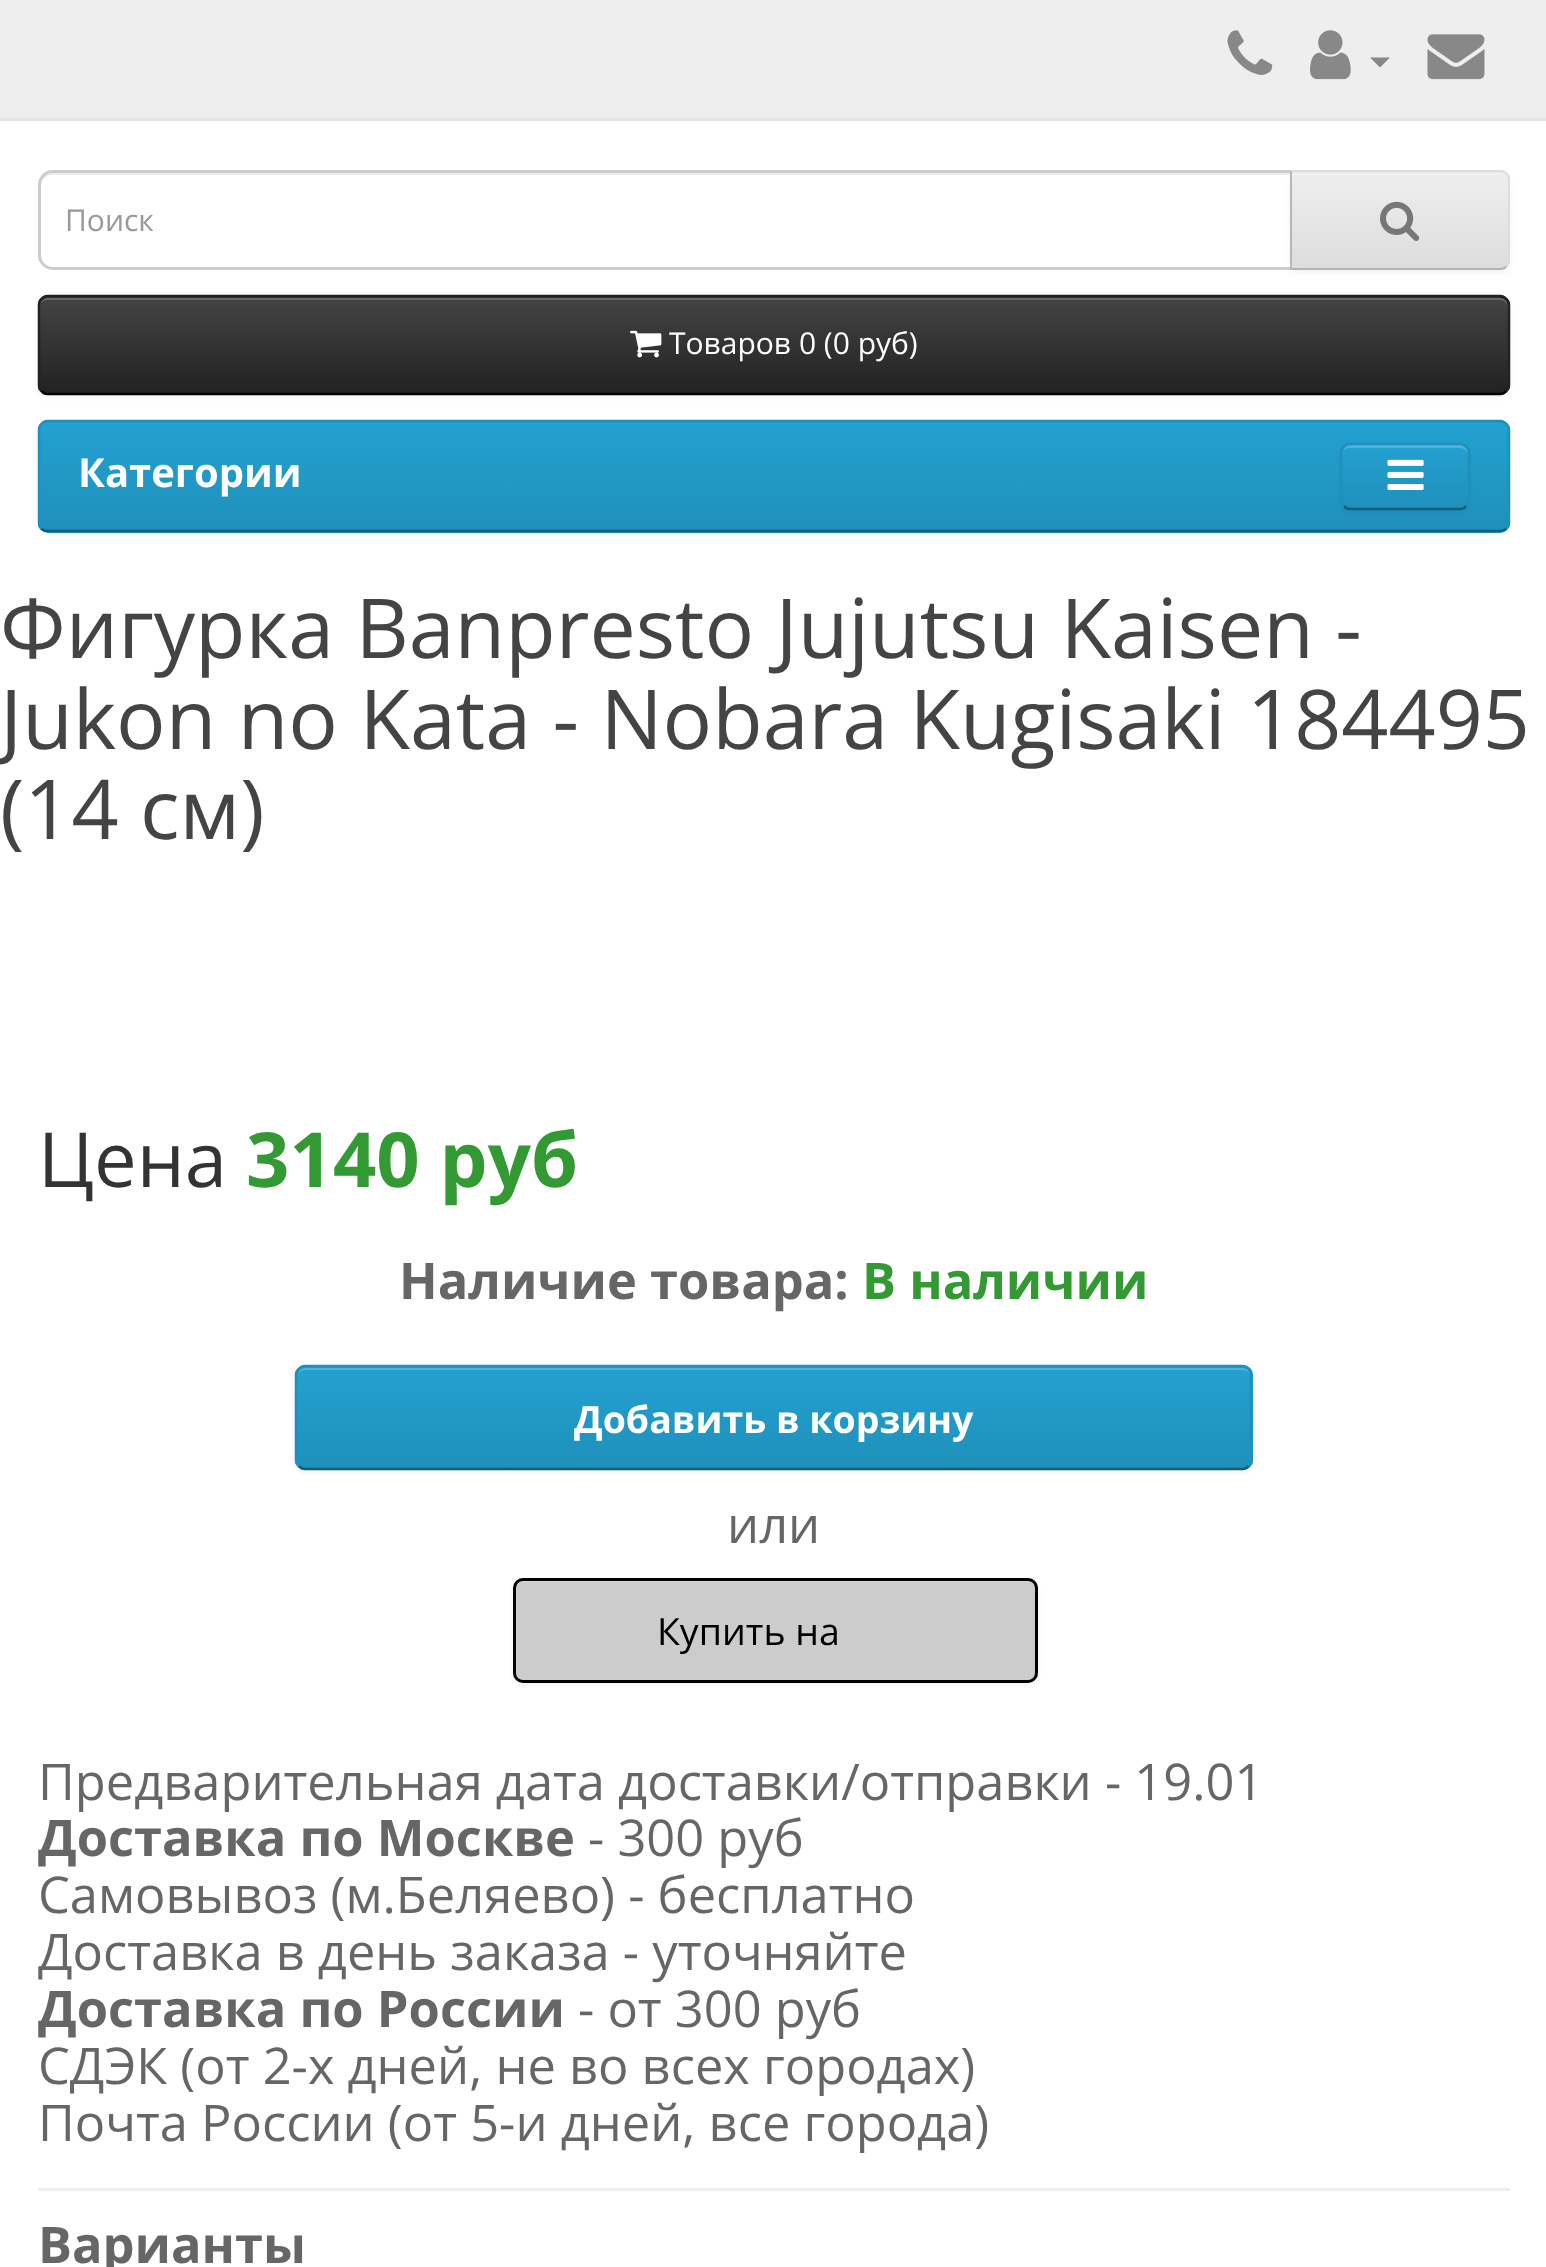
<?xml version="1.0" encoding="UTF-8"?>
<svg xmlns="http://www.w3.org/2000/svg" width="1546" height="2267">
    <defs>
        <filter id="blur1" x="-50%" y="-200%" width="200%" height="500%"><feGaussianBlur stdDeviation="2.5"/></filter>
        <clipPath id="clip1"><path d="M 1290 170 H 1500 C 1505.5 170 1510 174.5 1510 180 V 260 C 1510 265.5 1505.5 270 1500 270 H 1290 Z"/></clipPath>
        <linearGradient id="g1" gradientUnits="userSpaceOnUse" x1="1400" y1="173" x2="1400" y2="268"><stop offset="0" stop-color="#EEEEEE"/><stop offset="1" stop-color="#DDDDDD"/></linearGradient>
        <clipPath id="clip2"><rect x="38" y="295" width="1472" height="100" rx="10"/></clipPath>
        <linearGradient id="g2" gradientUnits="userSpaceOnUse" x1="774" y1="297" x2="774" y2="393"><stop offset="0" stop-color="#444444"/><stop offset="1" stop-color="#222222"/></linearGradient>
        <clipPath id="clip3"><rect x="38" y="420" width="1472" height="113" rx="10"/></clipPath>
        <linearGradient id="g3" gradientUnits="userSpaceOnUse" x1="774" y1="422" x2="774" y2="530"><stop offset="0" stop-color="#23A1D1"/><stop offset="1" stop-color="#1F90BB"/></linearGradient>
        <clipPath id="clip4"><rect x="1340" y="443" width="130" height="67" rx="10"/></clipPath>
        <linearGradient id="g4" gradientUnits="userSpaceOnUse" x1="1405" y1="445" x2="1405" y2="508"><stop offset="0" stop-color="#23A1D1"/><stop offset="1" stop-color="#1F90BB"/></linearGradient>
        <clipPath id="clip5"><rect x="295" y="1365" width="958" height="105" rx="10"/></clipPath>
        <linearGradient id="g5" gradientUnits="userSpaceOnUse" x1="774" y1="1368" x2="774" y2="1468"><stop offset="0" stop-color="#23A1D1"/><stop offset="1" stop-color="#1F90BB"/></linearGradient>
    </defs>
    <rect width="100%" height="100%" fill="#FFFFFF"/>
    <rect x="0" y="0" width="1546" height="118" fill="#EEEEEE"/>
    <rect x="0" y="118" width="1546" height="3" fill="#E2E2E2"/>
    <image x="1227" y="30" width="46" height="45" href="img_01.png"/>
    <image x="1310" y="30" width="41" height="50" href="img_02.png"/>
    <path d="M 1370 57.5 H 1390 L 1380 67.5 Z" fill="#888888"/>
    <image x="1427" y="34" width="58" height="46" href="img_03.png"/>
    <path d="M 52 175 H 1290 V 173 H 53 C 46 173 40 179 40 186 V 188 C 40 181 46 175 52 175 Z" fill="#ECECEC"/>
    <path d="M 53 171.5 H 1291.5 V 268.5 H 53 C 45.5 268.5 39.5 262.5 39.5 255 V 185 C 39.5 177.5 45.5 171.5 53 171.5 Z" fill="none" stroke="#CCCCCC" stroke-width="3"/>
    <text x="65" y="231" font-family="Open Sans" font-size="30" fill="#999999">Поиск</text>
    <rect x="1290" y="173" width="220" height="100" rx="10" fill="#000000" fill-opacity="0.05" filter="url(#blur1)"/>
    <path d="M 1290 170 H 1500 C 1505.5 170 1510 174.5 1510 180 V 260 C 1510 265.5 1505.5 270 1500 270 H 1290 Z" fill="#E7E7E7"/>
    <g clip-path="url(#clip1)">
        <rect x="1292" y="173" width="218" height="95" fill="url(#g1)"/>
    </g>
    <path d="M 1293 173 V 175 H 1500 C 1504 175 1508 178 1508 182 C 1508 177 1505 173 1500 173 Z" fill="#F1F1F1"/>
    <path d="M 1290 170 L 1292 172 H 1500 C 1502 172 1504 173 1506 174 L 1507 173 C 1506 171 1503 170 1500 170 Z" fill="#DDDDDD"/>
    <path d="M 1510 260 V 180 C 1510 177 1509 174 1507 173 L 1506 174 C 1507 176 1508 178 1508 180 V 260 C 1508 262 1507 264 1506 266 L 1507 267 C 1509 266 1510 263 1510 260 Z" fill="#DDDDDD"/>
    <path d="M 1500 270 C 1503 270 1506 269 1507 267 L 1506 266 C 1504 267 1502 268 1500 268 H 1292 L 1290 270 Z" fill="#B3B3B3"/>
    <path d="M 1290 170 V 270 L 1292 268 V 172 Z" fill="#B7B7B7"/>
    <image x="1380" y="201" width="40" height="40" href="img_04.png"/>
    <rect x="38" y="298" width="1472" height="100" rx="10" fill="#000000" fill-opacity="0.05" filter="url(#blur1)"/>
    <rect x="38" y="295" width="1472" height="100" rx="10" fill="#363636"/>
    <g clip-path="url(#clip2)">
        <rect x="38" y="298" width="1472" height="95" fill="url(#g2)"/>
    </g>
    <path d="M 48 300 H 1500 C 1504 300 1508 303 1508 308 V 306 C 1508 302 1504 298 1500 298 H 48 C 44 298 40 302 40 306 V 308 C 40 303 43 300 48 300 Z" fill="#696969"/>
    <path d="M 1506 391 C 1504.5 393 1502.5 394 1500 394 H 47.5 C 45 394 43 393 41.5 391" fill="none" stroke="#000000" stroke-width="2.5"/>
    <path d="M 41.5 391 C 39.5 389.5 39 387.5 39 385 V 305 C 39 302.5 39.5 300.5 41.5 299 C 43 297 45 296 47.5 296 H 1500 C 1502.5 296 1504.5 297 1506 299 C 1508 300.5 1509 302.5 1509 305 V 385 C 1509 387.5 1508 389.5 1506 391" fill="none" stroke="#222222" stroke-width="2.5"/>
    <image x="630" y="330" width="32" height="28" href="img_05.png"/>
    <text x="669" y="354" font-family="Open Sans" font-size="30" fill="#FFFFFF">Товаров 0 (0 руб)</text>
    <rect x="38" y="420" width="1472" height="113" rx="10" fill="#229AC8"/>
    <g clip-path="url(#clip3)">
        <rect x="38" y="423" width="1472" height="107" fill="url(#g3)"/>
    </g>
    <path d="M 1506 528.5 C 1504.5 530.5 1502.5 531 1500 531 H 47.5 C 45 531 43 530.5 41.5 528.5" fill="none" stroke="#145E7A" stroke-width="2.5"/>
    <path d="M 41.5 528.5 C 39.5 527 39 525 39 522.5 V 430 C 39 427.5 39.5 425.5 41.5 424 C 43 422 45 421 47.5 421 H 1500 C 1502.5 421 1504.5 422 1506 424 C 1508 425.5 1509 427.5 1509 430 V 522.5 C 1509 525 1508 527 1506 528.5" fill="none" stroke="#1F90BB" stroke-width="2.5"/>
    <text x="78" y="487" font-family="Open Sans" font-size="40" font-weight="700" fill="#FFFFFF">Категории</text>
    <rect x="1340" y="445" width="130" height="68" rx="10" fill="#000000" fill-opacity="0.05" filter="url(#blur1)"/>
    <g clip-path="url(#clip4)">
        <rect x="1340" y="445" width="130" height="63" fill="url(#g4)"/>
    </g>
    <path d="M 1350 448 H 1460 C 1464 448 1468 451 1468 455 V 453 C 1468 449 1464 445 1460 445 H 1351 C 1347 445 1344 448 1343 451 C 1345 449 1347 448 1350 448 Z" fill="#FFFFFF" fill-opacity="0.2"/>
    <path d="M 1466 506 C 1464.5 508 1462.5 509 1460 509 H 1350 C 1347.5 509 1345.5 508 1344 506" fill="none" stroke="#145E7A" stroke-width="2.5"/>
    <path d="M 1344 506 C 1342 504.5 1341 502.5 1341 500 V 452.5 C 1341 450 1342 448 1344 446.5 C 1345.5 444.5 1347.5 444 1350 444 H 1460 C 1462.5 444 1464.5 444.5 1466 446.5 C 1468 448 1469 450 1469 452.5 V 500 C 1469 502.5 1468 504.5 1466 506" fill="none" stroke="#1F90BB" stroke-width="2.5"/>
    <image x="1387" y="459" width="37" height="31" href="img_06.png"/>
    <text font-family="Open Sans" font-size="82.5" fill="#444444">
        <tspan x="0" y="658">Фигурка Banpresto Jujutsu Kaisen -</tspan>
        <tspan x="0" y="749">Jukon no Kata - Nobara Kugisaki 184495</tspan>
        <tspan x="0" y="839">(14 см)</tspan>
    </text>
    <text x="38" y="1187" font-family="Open Sans" font-size="76" fill="#333333">Цена</text>
    <text x="246" y="1187" font-family="Open Sans" font-size="76" font-weight="700" fill="#339933">3140 руб</text>
    <text x="399" y="1299" font-family="Open Sans" font-size="50.6" font-weight="700" fill="#666666">Наличие товара:</text>
    <text x="862" y="1299" font-family="Open Sans" font-size="50.6" font-weight="700" fill="#339933">В наличии</text>
    <rect x="295" y="1368" width="958" height="105" rx="10" fill="#000000" fill-opacity="0.05" filter="url(#blur1)"/>
    <rect x="295" y="1365" width="958" height="105" rx="10" fill="#229AC8"/>
    <g clip-path="url(#clip5)">
        <rect x="295" y="1368" width="958" height="100" fill="url(#g5)"/>
    </g>
    <path d="M 305 1370 H 1242 C 1247 1370 1250 1373 1250 1378 C 1250 1373 1248 1368 1242 1368 H 306 C 300 1368 298 1373 298 1378 C 298 1373 301 1370 305 1370 Z" fill="#4FB4DA"/>
    <path d="M 1248.5 1466 C 1247 1468 1245 1469 1242.5 1469 H 305 C 302.5 1469 300.5 1468 299 1466" fill="none" stroke="#145E7A" stroke-width="2.5"/>
    <path d="M 299 1466 C 297 1464.5 296 1462.5 296 1460 V 1375 C 296 1372.5 297 1370.5 299 1369 C 300.5 1367 302.5 1366 305 1366 H 1242.5 C 1245 1366 1247 1367 1248.5 1369 C 1250.5 1370.5 1251 1372.5 1251 1375 V 1460 C 1251 1462.5 1250.5 1464.5 1248.5 1466" fill="none" stroke="#1F90BB" stroke-width="2.5"/>
    <text x="574" y="1433" font-family="Open Sans" font-size="37.5" font-weight="700" fill="#FFFFFF">Добавить в корзину</text>
    <text x="727" y="1543" font-family="Open Sans" font-size="50.6" fill="#666666">или</text>
    <rect x="513" y="1580" width="525" height="105" rx="10" fill="#000000" fill-opacity="0.05" filter="url(#blur1)"/>
    <rect x="513" y="1578" width="525" height="105" rx="10" fill="#CCCCCC"/>
    <path d="M 522 1582 H 1028 C 1032 1582 1035 1586 1035 1590 V 1588 C 1035 1584 1031 1580 1027 1580 H 523 C 519 1580 515 1584 515 1588 V 1590 C 515 1586 518 1582 522 1582 Z" fill="#D6D6D6"/>
    <rect x="514.5" y="1579.5" width="522" height="102" rx="8.5" fill="none" stroke="#000000" stroke-width="3"/>
    <text x="657" y="1645" font-family="Open Sans" font-size="37.5" fill="#000000">Купить на</text>
    <text x="38" y="1800" font-family="Open Sans" font-size="50.6" fill="#666666">Предварительная дата доставки/отправки - 19.01</text>
    <text x="38" y="1856" font-family="Open Sans" font-size="50.6" font-weight="700" fill="#666666">Доставка по Москве</text>
    <text x="588" y="1856" font-family="Open Sans" font-size="50.6" fill="#666666">- 300 руб</text>
    <text font-family="Open Sans" font-size="50.6" fill="#666666">
        <tspan x="38" y="1913">Самовывоз (м.Беляево) - бесплатно</tspan>
        <tspan x="38" y="1970">Доставка в день заказа - уточняйте</tspan>
    </text>
    <text x="38" y="2027" font-family="Open Sans" font-size="50.6" font-weight="700" fill="#666666">Доставка по России</text>
    <text x="578" y="2027" font-family="Open Sans" font-size="50.6" fill="#666666">- от 300 руб</text>
    <text font-family="Open Sans" font-size="50.6" fill="#666666">
        <tspan x="38" y="2084">СДЭК (от 2-х дней, не во всех городах)</tspan>
        <tspan x="38" y="2141">Почта России (от 5-и дней, все города)</tspan>
    </text>
    <rect x="38" y="2188" width="1472" height="3" fill="#EEEEEE"/>
    <text x="38" y="2263" font-family="Open Sans" font-size="50.6" font-weight="700" fill="#666666">Варианты</text>
</svg>
